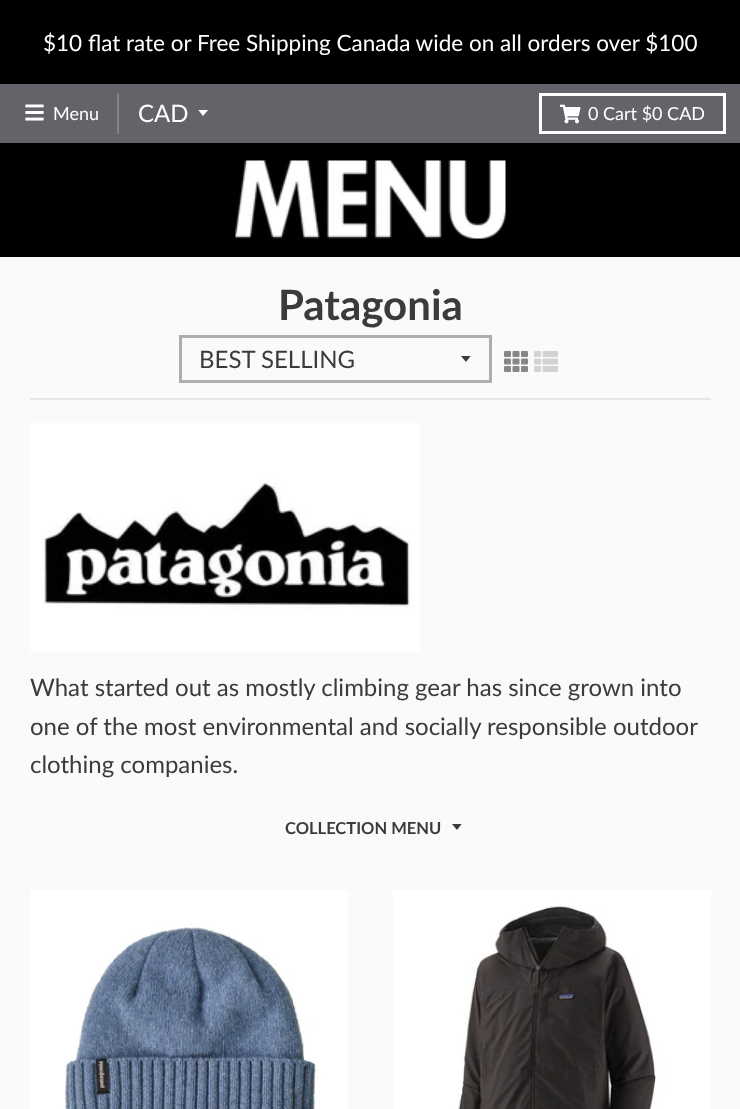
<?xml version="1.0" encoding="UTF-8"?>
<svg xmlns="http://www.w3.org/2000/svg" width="740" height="1109">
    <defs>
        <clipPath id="clip1"><rect x="198" y="110" width="12" height="7"/></clipPath>
        <clipPath id="clip2"><rect x="461" y="356" width="12" height="7"/></clipPath>
        <clipPath id="clip3"><rect x="452" y="824" width="12" height="7"/></clipPath>
    </defs>
    <rect width="100%" height="100%" fill="#FAFAFA"/>
    <rect x="0" y="0" width="740" height="84" fill="#000000"/>
    <text x="43" y="51" font-family="Lato" font-size="22.5" fill="#FFFFFF">$10 flat rate or Free Shipping Canada wide on all orders over $100</text>
    <rect x="0" y="84" width="740" height="59" fill="#65636A"/>
    <rect x="117" y="93" width="2" height="41" fill="#838287"/>
    <image x="25" y="104" width="19" height="17" href="img_01.png"/>
    <text x="53" y="120" font-family="Lato" font-size="18" fill="#FFFFFF">Menu</text>
    <g clip-path="url(#clip1)">
        <path d="M 198 109.5 L 203 116 L 208.5 109.5 Z" fill="#FFFFFF"/>
    </g>
    <text x="138" y="122" font-family="Lato" font-size="24" fill="#FFFFFF">CAD</text>
    <rect x="540.5" y="94.5" width="184" height="38" fill="none" stroke="#FFFFFF" stroke-width="3"/>
    <image x="560" y="104" width="21" height="20" href="img_02.png"/>
    <text x="588" y="120" font-family="Lato" font-size="18" fill="#FFFFFF">0 Cart $0 CAD</text>
    <rect x="0" y="143" width="740" height="114" fill="#000000"/>
    <image x="235" y="160" width="271" height="79" href="img_03.png"/>
    <rect x="30" y="398" width="681" height="2" fill="#E6E6E7"/>
    <text x="278" y="320" font-family="Lato" font-size="42" font-weight="700" fill="#3B3A3D">Patagonia</text>
    <g clip-path="url(#clip2)">
        <path d="M 460.5 355.5 L 466 362 L 471 355.5 Z" fill="#3B3A3D"/>
    </g>
    <rect x="180.5" y="336.5" width="310" height="45" fill="none" stroke="#ADADAE" stroke-width="3"/>
    <text x="199" y="368" font-family="Lato" font-size="24" fill="#3B3A3D">BEST SELLING</text>
    <image x="504" y="351" width="24" height="21" href="img_04.png"/>
    <image x="534" y="351" width="24" height="21" href="img_05.png"/>
    <image x="30" y="423" width="390" height="229" href="img_06.png"/>
    <text font-family="Lato" font-size="24" fill="#3B3A3D">
        <tspan x="30" y="696">What started out as mostly climbing gear has since grown into</tspan>
        <tspan x="30" y="735">one of the most environmental and socially responsible outdoor</tspan>
        <tspan x="30" y="773">clothing companies.</tspan>
    </text>
    <text x="285" y="834" font-family="Lato" font-size="16.5" font-weight="700" fill="#3B3A3D">COLLECTION MENU</text>
    <g clip-path="url(#clip3)">
        <path d="M 451.5 823.5 L 457 830 L 462 823.5 Z" fill="#3B3A3D"/>
    </g>
    <image x="30" y="890" width="318" height="219" href="img_07.png"/>
    <image x="393" y="890" width="318" height="219" href="img_08.png"/>
</svg>
